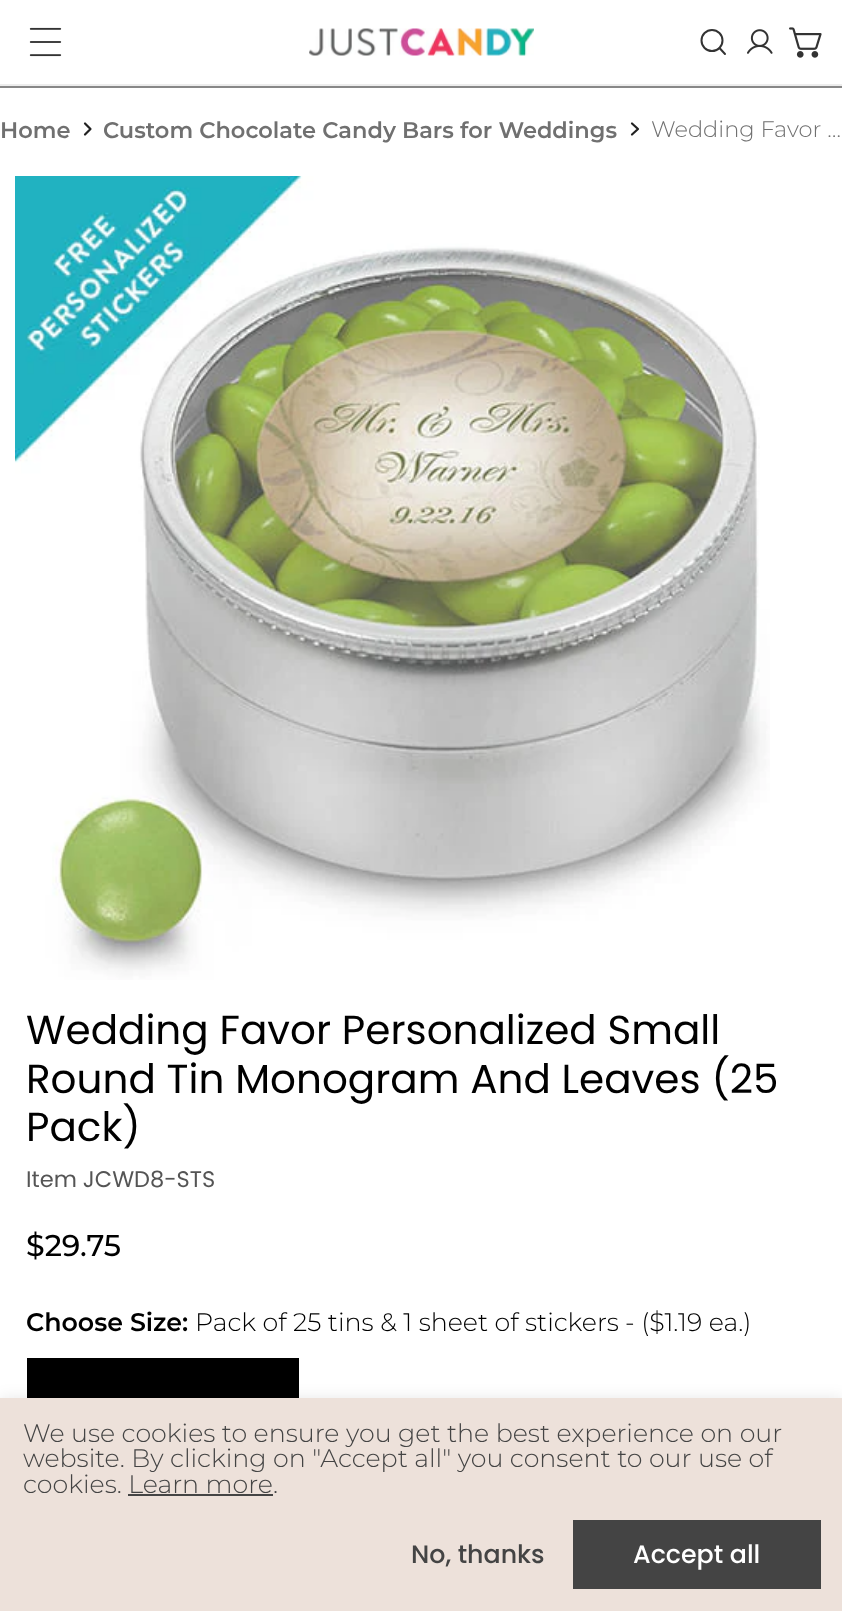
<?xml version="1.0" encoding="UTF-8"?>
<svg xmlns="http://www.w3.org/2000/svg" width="842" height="1611">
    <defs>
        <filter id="blur1" x="-50%" y="-200%" width="200%" height="500%"><feGaussianBlur stdDeviation="7.5"/></filter>
    </defs>
    <rect width="100%" height="100%" fill="#FFFFFF"/>
    <rect x="0" y="86" width="842" height="2" fill="#888888"/>
    <rect x="0" y="84" width="842" height="2" fill="#EDEDED"/>
    <image x="29" y="27" width="33" height="30" href="img_01.png"/>
    <image x="309" y="28" width="225" height="28" href="img_02.png"/>
    <circle cx="712" cy="40.5" r="10.5" fill="none" stroke="#333333" stroke-width="2"/>
    <path d="M 725 54 L 719.5 48" fill="none" stroke="#333333" stroke-width="2" stroke-linecap="round" stroke-linejoin="round"/>
    <image x="747" y="29" width="26" height="25" href="img_03.png"/>
    <image x="789" y="27" width="33" height="31" href="img_04.png"/>
    <text x="0" y="138" font-family="Montserrat" font-size="22.5" font-weight="600" fill="#707070">Home</text>
    <path d="M 85 123.5 L 90.5 129 L 85 134.5" fill="none" stroke="#212121" stroke-width="2.2" stroke-linecap="round" stroke-linejoin="round"/>
    <text x="103" y="138" font-family="Montserrat" font-size="22.5" font-weight="600" fill="#707070">Custom Chocolate Candy Bars for Weddings</text>
    <path d="M 632 123.5 L 638 129 L 632 134.5" fill="none" stroke="#212121" stroke-width="2.2" stroke-linecap="round" stroke-linejoin="round"/>
    <text x="651" y="137" font-family="Montserrat" font-size="22.5" font-weight="300" fill="#707070">Wedding Favor …</text>
    <image x="15" y="176" width="755" height="804" href="img_05.png"/>
    <text font-family="Poppins" font-size="40.5" fill="#000000">
        <tspan x="26" y="1044">Wedding Favor Personalized Small</tspan>
        <tspan x="26" y="1093">Round Tin Monogram And Leaves (25</tspan>
        <tspan x="26" y="1141">Pack)</tspan>
    </text>
    <text x="26" y="1187" font-family="Poppins" font-size="22.5" fill="#555555">Item JCWD8-STS</text>
    <text x="26" y="1256" font-family="Montserrat" font-size="30" font-weight="500" fill="#000000">$29.75</text>
    <text x="26" y="1331" font-family="Montserrat" font-size="25.3" font-weight="600" fill="#000000">Choose Size:</text>
    <text x="195" y="1331" font-family="Montserrat" font-size="25.3" font-weight="300" fill="#000000">Pack of 25 tins &amp; 1 sheet of stickers</text>
    <text x="625" y="1331" font-family="Montserrat" font-size="25.3" font-weight="300" fill="#000000">- ($1.19 ea.)</text>
    <rect x="27" y="1358" width="272" height="40" fill="#000000"/>
    <rect x="0" y="1398" width="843" height="213" fill="#000000" fill-opacity="0.09" filter="url(#blur1)"/>
    <rect x="0" y="1398" width="842" height="213" fill="#EDE1DA"/>
    <text font-family="Montserrat" font-size="25.3" font-weight="300" fill="#444444">
        <tspan x="23" y="1442">We use cookies to ensure you get the best experience on our</tspan>
        <tspan x="23" y="1467">website. By clicking on "Accept all" you consent to our use of</tspan>
        <tspan x="23" y="1493">cookies. Learn more.</tspan>
    </text>
    <rect x="128" y="1494" width="145" height="2" fill="#444444"/>
    <text x="411" y="1563" font-family="Poppins" font-size="25.3" font-weight="500" fill="#444444">No, thanks</text>
    <rect x="573" y="1520" width="248" height="69" fill="#444444"/>
    <text x="633" y="1563" font-family="Poppins" font-size="25.3" font-weight="500" fill="#FFFFFF">Accept all</text>
</svg>
